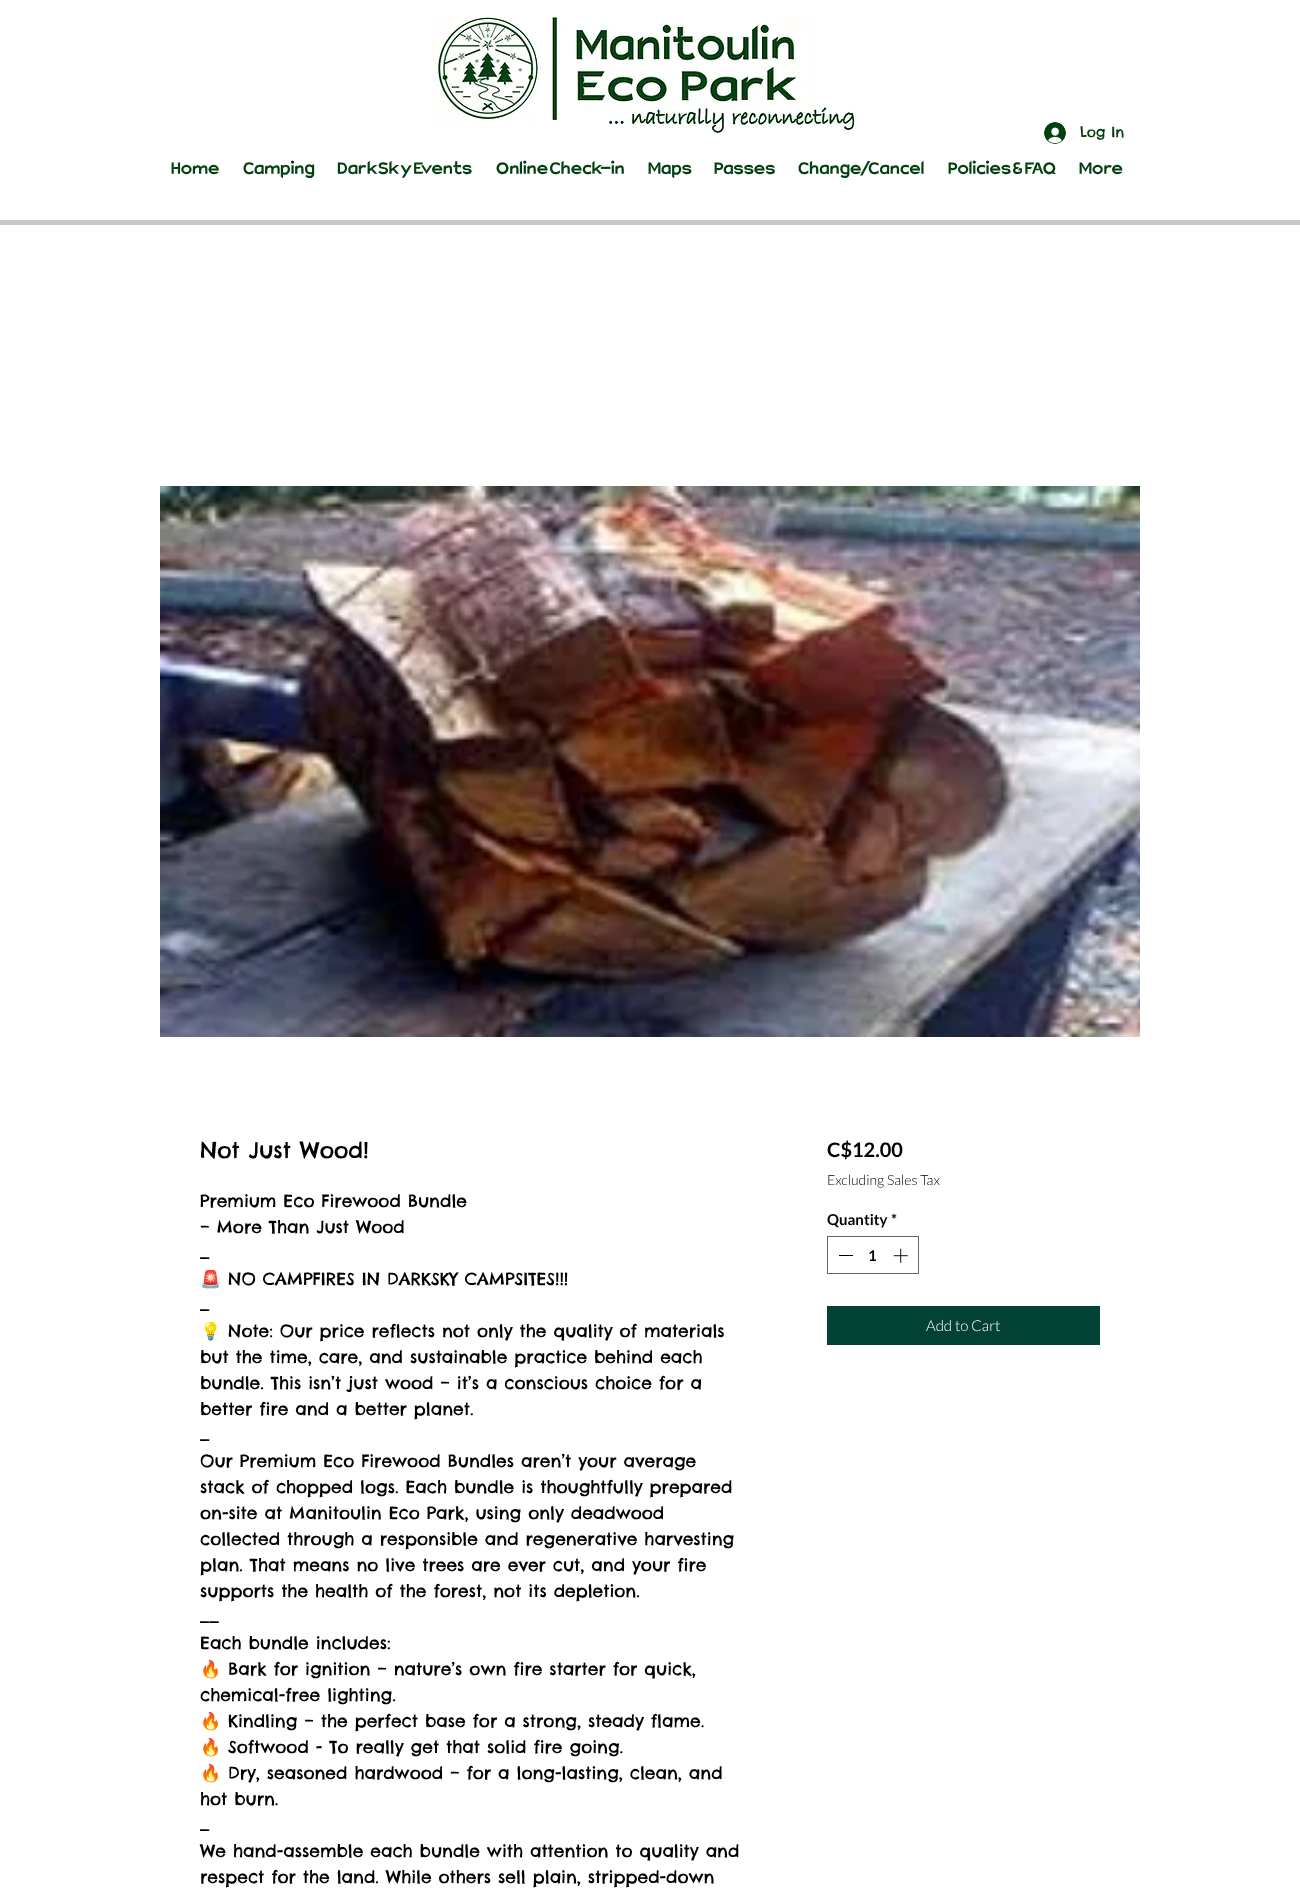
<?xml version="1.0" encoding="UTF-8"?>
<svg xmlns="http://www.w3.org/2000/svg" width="1300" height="1890">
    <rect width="100%" height="100%" fill="#FFFFFF"/>
    <image x="433" y="15" width="423" height="121" href="img_01.png"/>
    <image x="1044" y="122" width="22" height="22" href="img_02.png"/>
    <text x="1080" y="137" font-family="Chelsea Market" font-size="14" fill="#02400F">Log In</text>
    <text x="171" y="174" font-family="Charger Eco" font-size="20" font-weight="900" fill="#02400F">Home</text>
    <text x="243" y="174" font-family="Charger Eco" font-size="20" font-weight="900" fill="#02400F">Camping</text>
    <text x="337" y="174" font-family="Charger Eco" font-size="20" font-weight="900" fill="#02400F">DarkSky Events</text>
    <text x="496" y="174" font-family="Charger Eco" font-size="20" font-weight="900" fill="#02400F">Online Check-in</text>
    <text x="648" y="174" font-family="Charger Eco" font-size="20" font-weight="900" fill="#02400F">Maps</text>
    <text x="714" y="174" font-family="Charger Eco" font-size="20" font-weight="900" fill="#02400F">Passes</text>
    <text x="798" y="174" font-family="Charger Eco" font-size="20" font-weight="900" fill="#02400F">Change/Cancel</text>
    <text x="948" y="174" font-family="Charger Eco" font-size="20" font-weight="900" fill="#02400F">Policies &amp; FAQ</text>
    <text x="1079" y="174" font-family="Charger Eco" font-size="20" font-weight="900" fill="#02400F">More</text>
    <rect x="0" y="220" width="1300" height="5" fill="#C7C7C7"/>
    <image x="160" y="486" width="980" height="551" href="img_03.png"/>
    <text x="200" y="1158" font-family="Chelsea Market" font-size="22" fill="#000000">Not Just Wood!</text>
    <text font-family="Chelsea Market" font-size="17" fill="#000000">
        <tspan x="200" y="1207">Premium Eco Firewood Bundle</tspan>
        <tspan x="200" y="1233">– More Than Just Wood</tspan>
        <tspan x="200" y="1259">_</tspan>
    </text>
    <text x="200" y="1285" font-family="Noto Color Emoji" font-size="17" fill="#000000">🚨</text>
    <text x="228" y="1285" font-family="Chelsea Market" font-size="17" fill="#000000">NO CAMPFIRES IN DARKSKY CAMPSITES!!!</text>
    <text x="200" y="1311" font-family="Chelsea Market" font-size="17" fill="#000000">_</text>
    <text x="200" y="1337" font-family="Noto Color Emoji" font-size="17" fill="#000000">💡</text>
    <text x="228" y="1337" font-family="Chelsea Market" font-size="17" fill="#000000">Note: Our price reflects not only the quality of materials</text>
    <text font-family="Chelsea Market" font-size="17" fill="#000000">
        <tspan x="200" y="1363">but the time, care, and sustainable practice behind each</tspan>
        <tspan x="200" y="1389">bundle. This isn’t just wood – it’s a conscious choice for a</tspan>
        <tspan x="200" y="1415">better fire and a better planet.</tspan>
        <tspan x="200" y="1441">_</tspan>
        <tspan x="200" y="1467">Our Premium Eco Firewood Bundles aren’t your average</tspan>
        <tspan x="200" y="1493">stack of chopped logs. Each bundle is thoughtfully prepared</tspan>
        <tspan x="200" y="1519">on-site at Manitoulin Eco Park, using only deadwood</tspan>
        <tspan x="200" y="1545">collected through a responsible and regenerative harvesting</tspan>
        <tspan x="200" y="1571">plan. That means no live trees are ever cut, and your fire</tspan>
        <tspan x="200" y="1597">supports the health of the forest, not its depletion.</tspan>
        <tspan x="200" y="1623">__</tspan>
        <tspan x="200" y="1649">Each bundle includes:</tspan>
    </text>
    <text x="200" y="1675" font-family="Noto Color Emoji" font-size="17" fill="#000000">🔥</text>
    <text x="228" y="1675" font-family="Chelsea Market" font-size="17" fill="#000000">Bark for ignition – nature’s own fire starter for quick,</text>
    <text x="200" y="1701" font-family="Chelsea Market" font-size="17" fill="#000000">chemical-free lighting.</text>
    <text x="200" y="1727" font-family="Noto Color Emoji" font-size="17" fill="#000000">🔥</text>
    <text x="228" y="1727" font-family="Chelsea Market" font-size="17" fill="#000000">Kindling – the perfect base for a strong, steady flame.</text>
    <text x="200" y="1753" font-family="Noto Color Emoji" font-size="17" fill="#000000">🔥</text>
    <text x="228" y="1753" font-family="Chelsea Market" font-size="17" fill="#000000">Softwood - To really get that solid fire going.</text>
    <text x="200" y="1779" font-family="Noto Color Emoji" font-size="17" fill="#000000">🔥</text>
    <text x="228" y="1779" font-family="Chelsea Market" font-size="17" fill="#000000">Dry, seasoned hardwood – for a long-lasting, clean, and</text>
    <text font-family="Chelsea Market" font-size="17" fill="#000000">
        <tspan x="200" y="1805">hot burn.</tspan>
        <tspan x="200" y="1831">_</tspan>
        <tspan x="200" y="1857">We hand-assemble each bundle with attention to quality and</tspan>
        <tspan x="200" y="1883">respect for the land. While others sell plain, stripped-down</tspan>
    </text>
    <text x="827" y="1157" font-family="Lato" font-size="20" font-weight="700" fill="#000000">C$12.00</text>
    <text x="827" y="1185" font-family="Lato" font-size="14" font-weight="300" fill="#000000">Excluding Sales Tax</text>
    <text x="827" y="1225" font-family="Lato" font-size="15" font-weight="700" fill="#000000">Quantity</text>
    <text x="891" y="1225" font-family="Lato" font-size="15" font-weight="700" fill="#000000">*</text>
    <rect x="827.5" y="1236.5" width="91" height="37" fill="none" stroke="#666666"/>
    <rect x="839" y="1255" width="14" height="1" fill="#000000"/>
    <text x="868" y="1261" font-family="Lato" font-size="15" font-weight="700" fill="#000000">1</text>
    <image x="893" y="1248" width="15" height="15" href="img_04.png"/>
    <rect x="827" y="1306" width="273" height="39" fill="#014235"/>
    <text x="926" y="1331" font-family="Lato" font-size="15" font-weight="300" fill="#FFFFFF">Add to Cart</text>
</svg>
